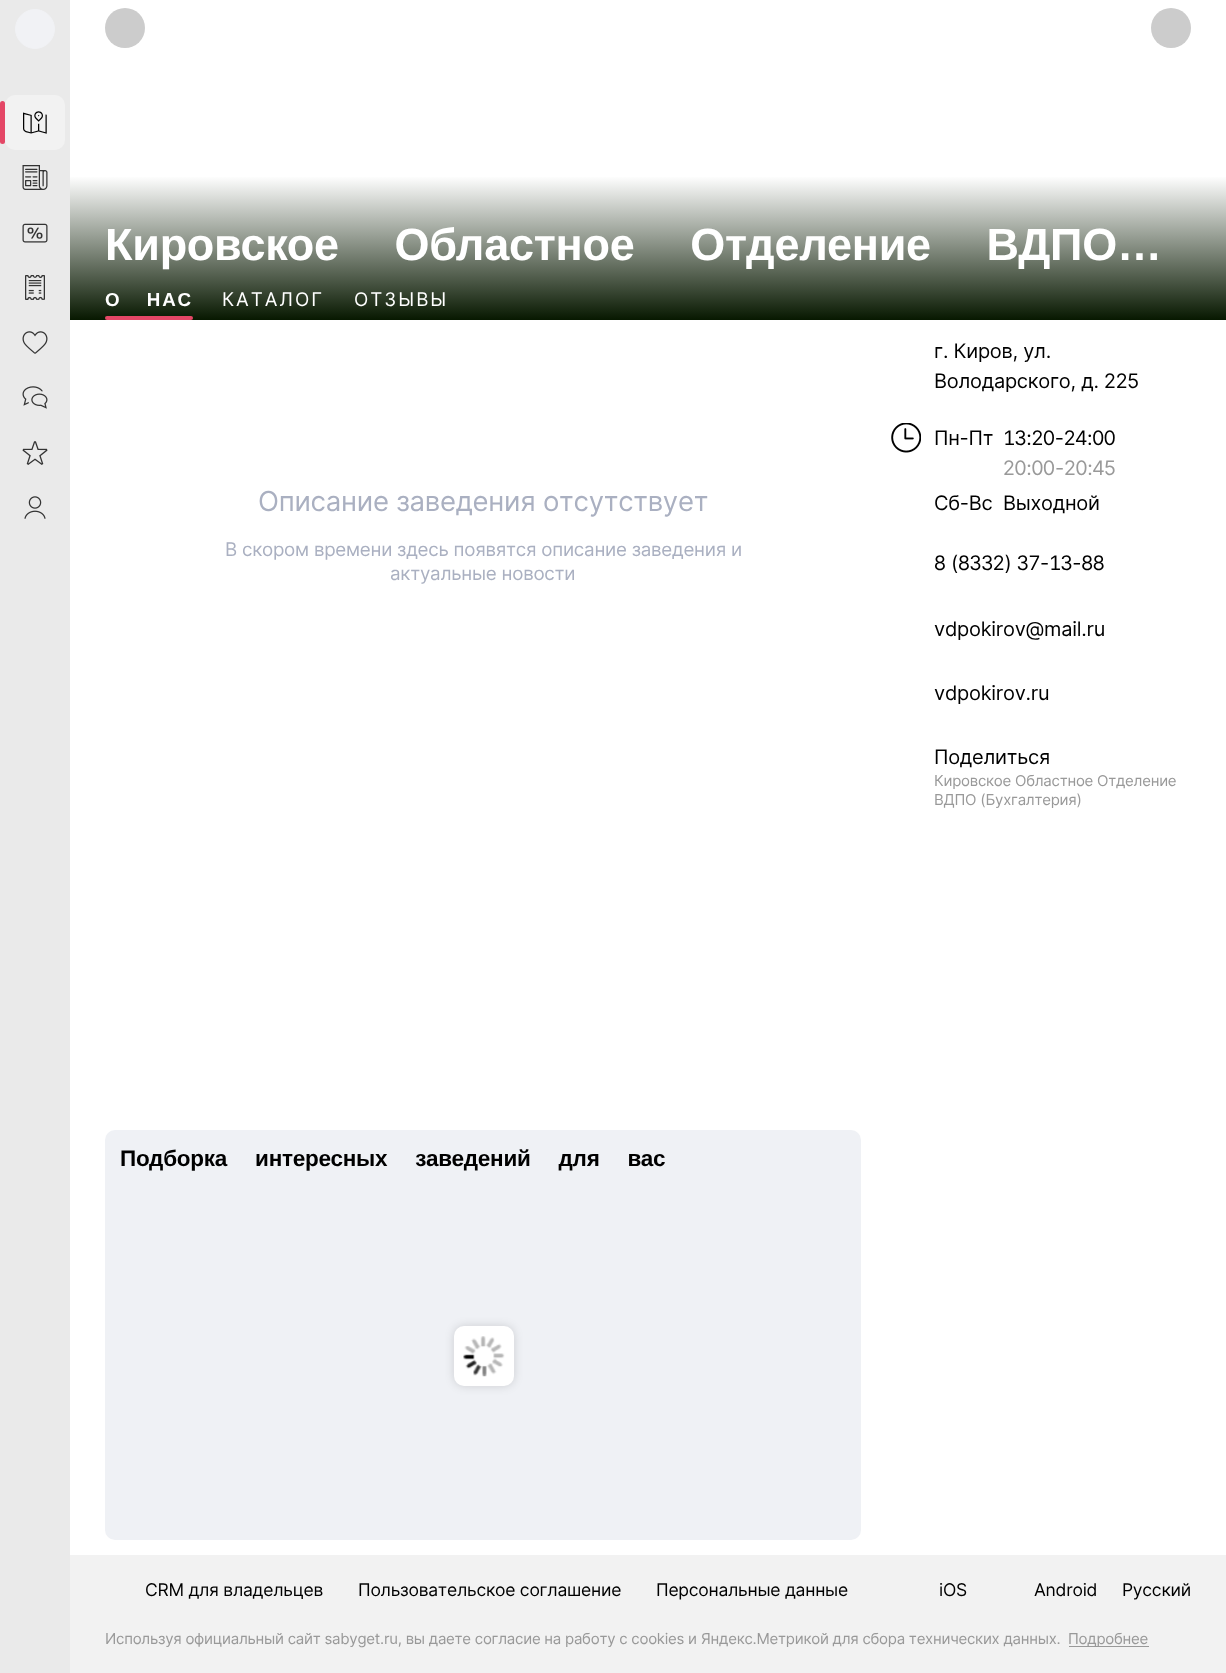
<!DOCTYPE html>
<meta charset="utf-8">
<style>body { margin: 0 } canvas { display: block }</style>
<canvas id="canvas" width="1226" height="1673"></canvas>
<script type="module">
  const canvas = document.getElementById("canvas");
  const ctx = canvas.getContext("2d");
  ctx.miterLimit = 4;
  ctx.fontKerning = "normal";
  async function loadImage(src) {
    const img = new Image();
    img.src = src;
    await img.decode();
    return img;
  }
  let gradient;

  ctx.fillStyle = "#ffffff";
  ctx.fillRect(0, 0, 1226, 1673);
  ctx.fillStyle = "#eaeaea";
  ctx.fillRect(0, 0, 70, 1673);
  ctx.fillStyle = "#f1f2f5";
  ctx.beginPath();
  ctx.arc(35, 29, 19.5, 0, Math.PI * 2);
  ctx.fill();
  ctx.strokeStyle = "#f1f2f5";
  ctx.stroke();
  ctx.fillStyle = "#e44766";
  ctx.beginPath();
  ctx.roundRect(0, 101, 5, 43, 2.5);
  ctx.fill();
  ctx.fillStyle = "#f2f2f2";
  ctx.beginPath();
  ctx.roundRect(5, 95, 60, 55, 10);
  ctx.fill();
  ctx.letterSpacing = "-0.25px";
  ctx.font = "25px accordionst";
  ctx.fillStyle = "#000000";
  ctx.fillText("Map", 23, 135);
  ctx.drawImage(await loadImage("img1.png"), 22, 165, 26, 25);
  ctx.drawImage(await loadImage("img2.png"), 22, 223, 26, 20);
  ctx.drawImage(await loadImage("img3.png"), 25, 275, 20, 25);
  ctx.drawImage(await loadImage("img4.png"), 22, 331, 26, 23);
  ctx.drawImage(await loadImage("img5.png"), 22, 386, 26, 23);
  ctx.drawImage(await loadImage("img6.png"), 22, 441, 26, 24);
  ctx.drawImage(await loadImage("img7.png"), 24, 496, 22, 23);
  ctx.fillStyle = "#cccccc";
  ctx.beginPath();
  ctx.arc(125, 28, 20, 0, Math.PI * 2);
  ctx.fill();
  ctx.beginPath();
  ctx.arc(1171, 28, 20, 0, Math.PI * 2);
  ctx.fill();
  gradient = ctx.createLinearGradient(648, 320, 648, 0);
  gradient.addColorStop(0, "#071800");
  gradient.addColorStop(0.45, "#ffffff");
  ctx.fillStyle = gradient;
  ctx.fillRect(70, 177, 1156, 143);
  ctx.wordSpacing = "43.5px";
  ctx.font = "bold 45px Liberation Sans";
  ctx.fillStyle = "#ffffff";
  ctx.fillText("Кировское Областное Отделение ВДПО…", 105, 260);
  ctx.letterSpacing = "2px";
  ctx.wordSpacing = "18px";
  ctx.font = "bold 18.75px Liberation Sans";
  ctx.fillText("О НАС", 105, 306);
  ctx.fillStyle = "#e44766";
  ctx.beginPath();
  ctx.roundRect(105, 316, 88, 4, 2);
  ctx.fill();
  ctx.wordSpacing = "0px";
  ctx.font = "18.75px Inter";
  ctx.fillStyle = "#ffffff";
  ctx.fillText("КАТАЛОГ", 222, 306);
  ctx.fillText("ОТЗЫВЫ", 354, 306);
  ctx.letterSpacing = "-0.25px";
  ctx.font = "27.5px Inter";
  ctx.fillStyle = "#aab0c1";
  ctx.fillText("Описание заведения отсутствует", 258, 511);
  ctx.font = "18.75px Inter";
  ctx.fillText("В скором времени здесь появятся описание заведения и", 225, 556);
  ctx.fillText("актуальные новости", 390, 580);
  ctx.fillStyle = "#eff1f5";
  ctx.beginPath();
  ctx.roundRect(105, 1130, 756, 410, 10);
  ctx.fill();
  ctx.wordSpacing = "22px";
  ctx.font = "bold 22.5px Liberation Sans";
  ctx.fillStyle = "#000000";
  ctx.fillText("Подборка интересных заведений для вас", 120, 1166);
  ctx.fillStyle = "rgba(0, 0, 0, 0.14)";
  ctx.filter = "blur(5px)";
  ctx.beginPath();
  ctx.roundRect(454, 1326, 60, 60, 10);
  ctx.fill();
  ctx.filter = "none";
  ctx.fillStyle = "#ffffff";
  ctx.beginPath();
  ctx.roundRect(454, 1326, 60, 60, 10);
  ctx.fill();
  ctx.drawImage(await loadImage("img8.png"), 463, 1336, 42, 41);
  ctx.wordSpacing = "0px";
  ctx.font = "20px Inter";
  ctx.fillStyle = "#000000";
  ctx.fillText("г. Киров, ул.", 934, 358);
  ctx.font = "20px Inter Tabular";
  ctx.fillText("Володарского, д. 225", 934, 388);
  ctx.drawImage(await loadImage("img9.png"), 891, 423, 30, 30);
  ctx.font = "20px Inter";
  ctx.fillText("Пн-Пт", 934, 445);
  ctx.font = "20px Inter Tabular";
  ctx.fillText("13:20-24:00", 1003, 445);
  ctx.fillStyle = "#999999";
  ctx.fillText("20:00", 1003, 475);
  ctx.font = "20px Inter";
  ctx.fillText("-", 1055, 475);
  ctx.font = "20px Inter Tabular";
  ctx.fillText("20:45", 1064, 475);
  ctx.font = "20px Inter";
  ctx.fillStyle = "#000000";
  ctx.fillText("Сб-Вс", 934, 510);
  ctx.fillText("Выходной", 1003, 510);
  ctx.font = "20px Inter Tabular";
  ctx.fillText("8 (8332) 37-13-88", 934, 570);
  ctx.font = "20px Inter";
  ctx.fillText("vdpokirov@mail.ru", 934, 636);
  ctx.fillText("vdpokirov.ru", 934, 700);
  ctx.fillText("Поделиться", 934, 764);
  ctx.font = "15px Inter";
  ctx.fillStyle = "#999999";
  ctx.fillText("Кировское Областное Отделение", 934, 786);
  ctx.fillText("ВДПО (Бухгалтерия)", 934, 805);
  ctx.fillStyle = "#f2f2f2";
  ctx.fillRect(70, 1555, 1156, 118);
  ctx.font = "17.5px Inter";
  ctx.fillStyle = "#000000";
  ctx.fillText("CRM для владельцев", 145, 1596);
  ctx.fillText("Пользовательское соглашение", 358, 1596);
  ctx.fillText("Персональные данные", 656, 1596);
  ctx.fillText("iOS", 939, 1596);
  ctx.fillText("Android", 1034, 1596);
  ctx.fillText("Русский", 1122, 1596);
  ctx.font = "15px Inter";
  ctx.fillStyle = "#999999";
  ctx.fillText("Используя официальный сайт sabyget.ru, вы даете согласие на работу с cookies и Яндекс.Метрикой для сбора технических данных.", 105, 1644);
  ctx.fillRect(1069, 1646, 80, 1);
  ctx.fillText("Подробнее", 1068, 1644);
</script>
